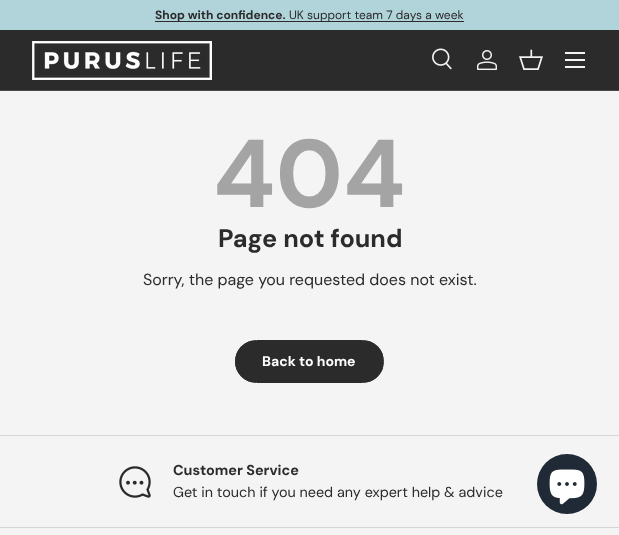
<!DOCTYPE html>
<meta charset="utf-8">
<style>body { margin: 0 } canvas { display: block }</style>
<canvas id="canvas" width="619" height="535"></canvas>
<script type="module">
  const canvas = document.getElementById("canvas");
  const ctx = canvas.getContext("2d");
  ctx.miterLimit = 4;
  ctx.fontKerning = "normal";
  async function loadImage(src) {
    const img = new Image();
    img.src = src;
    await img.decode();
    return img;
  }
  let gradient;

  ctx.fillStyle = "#f4f4f4";
  ctx.fillRect(0, 0, 619, 535);
  ctx.fillStyle = "#b1d4db";
  ctx.fillRect(0, 0, 619, 30);
  ctx.fillStyle = "#2a2b2a";
  ctx.fillRect(155, 21, 309, 1);
  ctx.font = "bold 12px DM Sans";
  ctx.fillText("Shop with confidence.", 155, 19);
  ctx.font = "12px DM Sans";
  ctx.fillText("UK support team 7 days a week", 289, 19);
  ctx.fillRect(0, 30, 619, 60);
  ctx.fillStyle = "#484948";
  ctx.fillRect(0, 90, 619, 1);
  ctx.drawImage(await loadImage("img1.png"), 32, 41, 180, 39);
  ctx.drawImage(await loadImage("img2.png"), 432, 48, 20, 22);
  ctx.drawImage(await loadImage("img3.png"), 477, 50, 20, 20);
  ctx.drawImage(await loadImage("img4.png"), 519, 49, 24, 21);
  ctx.fillStyle = "#f4f4f4";
  ctx.fillRect(565, 52, 20, 2);
  ctx.fillRect(565, 66, 20, 2);
  ctx.fillRect(565, 59, 20, 2);
  ctx.font = "bold 96px DM Sans";
  ctx.fillStyle = "#a3a4a3";
  ctx.fillText("404", 213, 207);
  ctx.font = "bold 25.25px DM Sans";
  ctx.fillStyle = "#2a2b2a";
  ctx.fillText("Page not found", 218, 247);
  ctx.font = "16px DM Sans";
  ctx.fillText("Sorry, the page you requested does not exist.", 143, 285);
  ctx.save();
  ctx.beginPath();
  ctx.roundRect(235, 340, 149, 43, 21.5);
  ctx.clip();
  gradient = ctx.createLinearGradient(-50, 309, 375, 414);
  gradient.addColorStop(0.6, "#525352");
  gradient.addColorStop(0.6, "#2a2b2a");
  gradient.addColorStop(1, "#2a2b2a");
  ctx.fillStyle = gradient;
  ctx.fillRect(235, 341, 148, 41);
  ctx.restore();
  ctx.beginPath();
  ctx.roundRect(235.5, 340.5, 148, 42, 21);
  ctx.strokeStyle = "#2a2b2a";
  ctx.stroke();
  ctx.font = "bold 14px DM Sans";
  ctx.fillStyle = "#ffffff";
  ctx.fillText("Back to home", 262, 366);
  ctx.fillStyle = "#d6d6d6";
  ctx.fillRect(0, 435, 619, 1);
  ctx.drawImage(await loadImage("img5.png"), 119, 466, 32, 32);
  ctx.font = "bold 14.4px DM Sans";
  ctx.fillStyle = "#2a2b2a";
  ctx.fillText("Customer Service", 173, 475);
  ctx.font = "14.4px DM Sans";
  ctx.fillText("Get in touch if you need any expert help & advice", 173, 497);
  ctx.fillStyle = "#202a36";
  ctx.beginPath();
  ctx.arc(567, 484, 30, 0, Math.PI * 2);
  ctx.fill();
  ctx.drawImage(await loadImage("img6.png"), 549, 469, 36, 36);
  ctx.fillStyle = "#d6d6d6";
  ctx.fillRect(0, 527, 619, 1);
</script>
